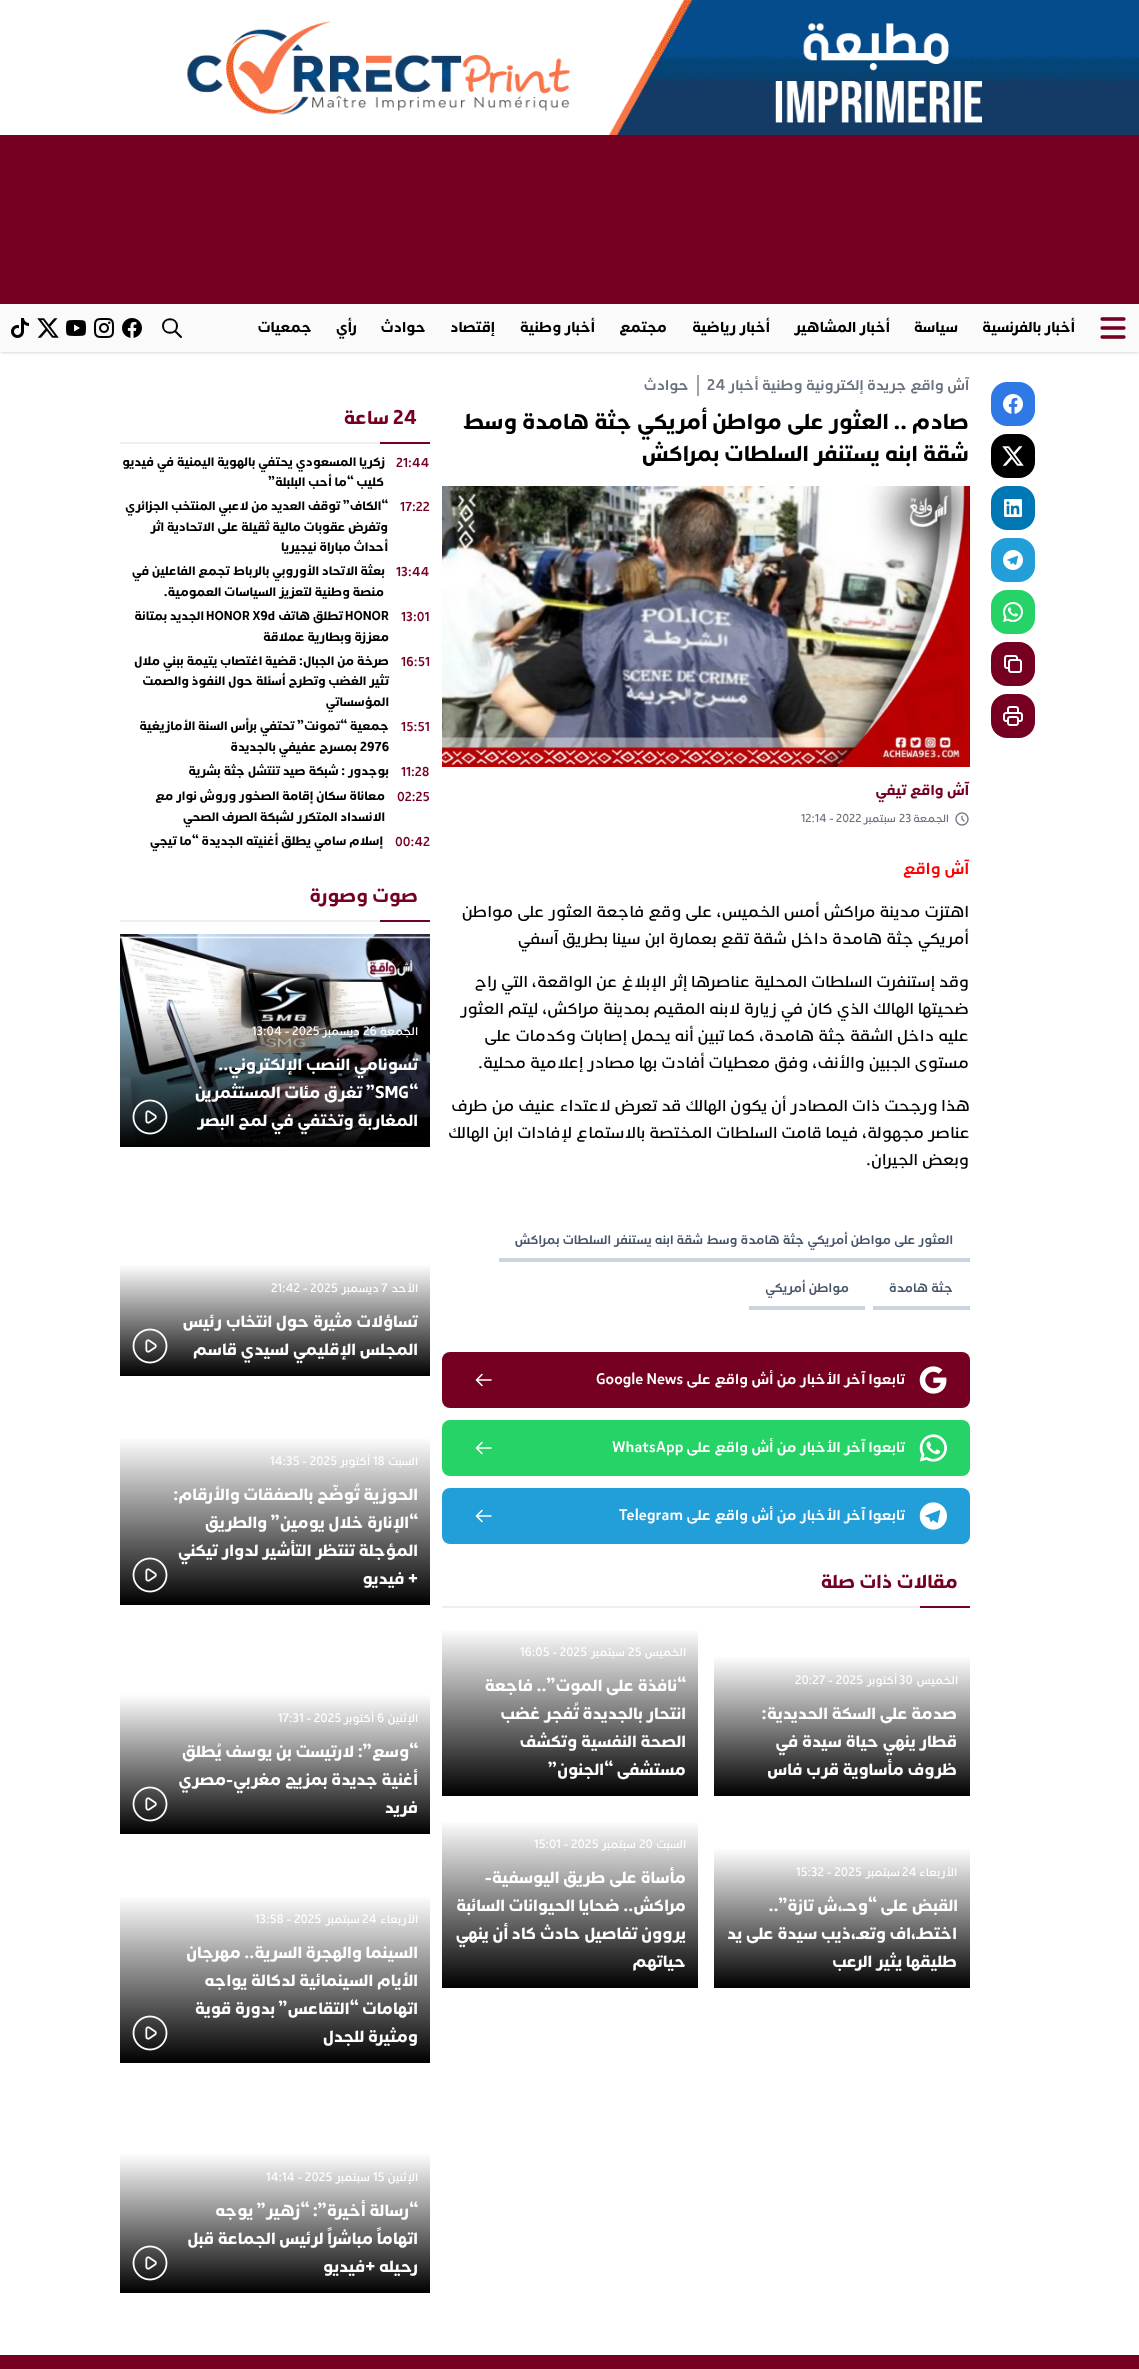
<!DOCTYPE html>
<meta charset="utf-8">
<style>body { margin: 0 } canvas { display: block }</style>
<canvas id="canvas" width="1139" height="2369"></canvas>
<script type="module">
  const canvas = document.getElementById("canvas");
  const ctx = canvas.getContext("2d");
  ctx.miterLimit = 4;
  ctx.fontKerning = "normal";
  async function loadImage(src) {
    const img = new Image();
    img.src = src;
    await img.decode();
    return img;
  }
  let gradient;

  ctx.fillStyle = "#ffffff";
  ctx.fillRect(0, 0, 1139, 2369);
  ctx.drawImage(await loadImage("img1.png"), 187, 0, 952, 135);
  ctx.fillStyle = "#750021";
  ctx.fillRect(0, 135, 1139, 169);
  ctx.fillStyle = "rgba(0, 0, 0, 0.1)";
  ctx.filter = "blur(1px)";
  ctx.beginPath();
  ctx.rect(1, 306, 1137, 46);
  ctx.fill();
  ctx.filter = "none";
  ctx.filter = "blur(1.5px)";
  ctx.beginPath();
  ctx.rect(0, 305, 1139, 48);
  ctx.fill();
  ctx.filter = "none";
  ctx.fillStyle = "#fafafa";
  ctx.fillRect(0, 304, 1139, 48);
  ctx.drawImage(await loadImage("img2.png"), 1100, 317, 26, 22);
  ctx.direction = "rtl";
  ctx.font = "bold 16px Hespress";
  ctx.fillStyle = "#000000";
  ctx.fillText("أخبار بالفرنسية", 1075, 332);
  ctx.fillText("سياسة", 958, 332);
  ctx.fillText("أخبار المشاهير", 890, 332);
  ctx.fillText("أخبار رياضية", 770, 332);
  ctx.fillText("مجتمع", 667, 332);
  ctx.fillText("أخبار وطنية", 595, 332);
  ctx.fillText("إقتصاد", 495, 332);
  ctx.fillText("حوادث", 426, 332);
  ctx.fillText("رأي", 357, 332);
  ctx.fillText("جمعيات", 312, 332);
  ctx.beginPath();
  ctx.moveTo(181, 337);
  ctx.lineTo(175, 331);
  ctx.moveTo(177, 326);
  ctx.bezierCurveTo(177, 335, 163, 335, 163, 326);
  ctx.bezierCurveTo(163, 317, 177, 317, 177, 326);
  ctx.closePath();
  ctx.strokeStyle = "#000000";
  ctx.lineWidth = 2;
  ctx.lineCap = "round";
  ctx.lineJoin = "round";
  ctx.stroke();
  ctx.drawImage(await loadImage("img3.png"), 122, 318, 20, 20);
  ctx.drawImage(await loadImage("img4.png"), 94, 318, 20, 20);
  ctx.drawImage(await loadImage("img5.png"), 66, 320, 20, 16);
  ctx.drawImage(await loadImage("img6.png"), 37, 318, 22, 20);
  ctx.drawImage(await loadImage("img7.png"), 11, 318, 18, 20);
  ctx.fillStyle = "#2f79e7";
  ctx.beginPath();
  ctx.roundRect(991, 382, 44, 44, 16);
  ctx.fill();
  ctx.drawImage(await loadImage("img8.png"), 1003, 394, 20, 20);
  ctx.fillStyle = "#000000";
  ctx.beginPath();
  ctx.roundRect(991, 434, 44, 44, 16);
  ctx.fill();
  ctx.drawImage(await loadImage("img9.png"), 1002, 446, 22, 20);
  ctx.fillStyle = "#0077b5";
  ctx.beginPath();
  ctx.roundRect(991, 486, 44, 44, 16);
  ctx.fill();
  ctx.drawImage(await loadImage("img10.png"), 1004, 499, 18, 18);
  ctx.fillStyle = "#229ed9";
  ctx.beginPath();
  ctx.roundRect(991, 538, 44, 44, 16);
  ctx.fill();
  ctx.drawImage(await loadImage("img11.png"), 1003, 550, 20, 20);
  ctx.fillStyle = "#25d366";
  ctx.beginPath();
  ctx.roundRect(991, 590, 44, 44, 16);
  ctx.fill();
  ctx.drawImage(await loadImage("img12.png"), 1003, 602, 20, 20);
  ctx.fillStyle = "#750021";
  ctx.beginPath();
  ctx.roundRect(991, 642, 44, 44, 16);
  ctx.fill();
  ctx.drawImage(await loadImage("img13.png"), 1004, 655, 18, 18);
  ctx.beginPath();
  ctx.roundRect(991, 694, 44, 44, 16);
  ctx.fill();
  ctx.drawImage(await loadImage("img14.png"), 1003, 706, 20, 20);
  ctx.font = "600 16px Hespress";
  ctx.fillStyle = "#6b7280";
  ctx.fillText("آش واقع جريدة إلكترونية وطنية أخبار", 969, 390);
  ctx.direction = "ltr";
  ctx.fillText("24", 707, 390);
  ctx.fillStyle = "#9ca3af";
  ctx.fillRect(697, 375, 2, 21);
  ctx.direction = "rtl";
  ctx.fillStyle = "#6b7280";
  ctx.fillText("حوادث", 689, 390);
  ctx.font = "bold 24px Hespress";
  ctx.fillStyle = "#000000";
  ctx.fillText("صادم .. العثور على مواطن أمريكي جثة هامدة وسط", 969, 429);
  ctx.fillText("شقة ابنه يستنفر السلطات بمراكش", 969, 461);
  ctx.drawImage(await loadImage("img15.png"), 442, 486, 528, 281);
  ctx.font = "bold 16px Hespress";
  ctx.fillStyle = "#750021";
  ctx.fillText("آش واقع تيفي", 969, 795);
  ctx.drawImage(await loadImage("img16.png"), 955, 812, 14, 14);
  ctx.font = "500 12px Hespress";
  ctx.fillStyle = "#6b7280";
  ctx.fillText("الجمعة", 949, 822);
  ctx.direction = "ltr";
  ctx.fillText("23", 899, 822);
  ctx.direction = "rtl";
  ctx.fillText("سبتمبر", 896, 822);
  ctx.direction = "ltr";
  ctx.fillText("12:14 - 2022", 801, 822);
  ctx.direction = "rtl";
  ctx.font = "600 18px Hespress";
  ctx.fillStyle = "#ff0000";
  ctx.fillText("آش واقع", 969, 874);
  ctx.font = "500 18px Hespress";
  ctx.fillStyle = "#000000";
  ctx.fillText("اهتزت مدينة مراكش أمس الخميس، على وقع فاجعة العثور على مواطن", 969, 917);
  ctx.fillText("أمريكي جثة هامدة داخل شقة تقع بعمارة ابن سينا بطريق آسفي", 969, 944);
  ctx.fillText("وقد إستنفرت السلطات المحلية عناصرها إثر الإبلاغ عن الواقعة، التي راح", 969, 987);
  ctx.fillText("ضحيتها الهالك الذي كان في زيارة لابنه المقيم بمدينة مراكش، ليتم العثور", 969, 1014);
  ctx.fillText("عليه داخل الشقة جثة هامدة، كما تبين أنه يحمل إصابات وكدمات على", 969, 1041);
  ctx.fillText("مستوى الجبين والأنف، وفق معطيات أفادت بها مصادر إعلامية محلية.", 969, 1068);
  ctx.fillText("هذا ورجحت ذات المصادر أن يكون الهالك قد تعرض لاعتداء عنيف من طرف", 970, 1111);
  ctx.fillText("عناصر مجهولة، فيما قامت السلطات المختصة بالاستماع لإفادات ابن الهالك", 970, 1138);
  ctx.fillText("وبعض الجيران.", 969, 1165);
  ctx.fillStyle = "#cbd5e1";
  ctx.fillRect(499, 1258, 471, 4);
  ctx.font = "600 14px Hespress";
  ctx.fillStyle = "#475569";
  ctx.fillText("العثور على مواطن أمريكي جثة هامدة وسط شقة ابنه يستنفر السلطات بمراكش", 953, 1244);
  ctx.fillStyle = "#cbd5e1";
  ctx.fillRect(873, 1306, 97, 4);
  ctx.fillStyle = "#475569";
  ctx.fillText("جثة هامدة", 953, 1292);
  ctx.fillStyle = "#cbd5e1";
  ctx.fillRect(749, 1306, 116, 4);
  ctx.fillStyle = "#475569";
  ctx.fillText("مواطن أمريكي", 849, 1292);
  ctx.fillStyle = "#750021";
  ctx.beginPath();
  ctx.roundRect(442, 1352, 528, 56, 8);
  ctx.fill();
  ctx.drawImage(await loadImage("img17.png"), 919, 1366, 28, 28);
  ctx.font = "600 16px Hespress";
  ctx.fillStyle = "#ffffff";
  ctx.fillText("تابعوا آخر الأخبار من أش واقع على", 905, 1384);
  ctx.direction = "ltr";
  ctx.fillText("Google News", 596, 1384);
  ctx.beginPath();
  ctx.moveTo(482, 1385.5);
  ctx.lineTo(476.5, 1380);
  ctx.moveTo(476.5, 1380);
  ctx.lineTo(482, 1374.5);
  ctx.moveTo(476.5, 1380);
  ctx.lineTo(491, 1380);
  ctx.strokeStyle = "#ffffff";
  ctx.lineWidth = 1.6;
  ctx.stroke();
  ctx.fillStyle = "#25d366";
  ctx.beginPath();
  ctx.roundRect(442, 1420, 528, 56, 8);
  ctx.fill();
  ctx.drawImage(await loadImage("img18.png"), 919, 1434, 28, 28);
  ctx.direction = "rtl";
  ctx.fillStyle = "#ffffff";
  ctx.fillText("تابعوا آخر الأخبار من أش واقع على", 905, 1452);
  ctx.direction = "ltr";
  ctx.fillText("WhatsApp", 612, 1452);
  ctx.beginPath();
  ctx.moveTo(482, 1453.5);
  ctx.lineTo(476.5, 1448);
  ctx.moveTo(476.5, 1448);
  ctx.lineTo(482, 1442.5);
  ctx.moveTo(476.5, 1448);
  ctx.lineTo(491, 1448);
  ctx.stroke();
  ctx.fillStyle = "#229ed9";
  ctx.beginPath();
  ctx.roundRect(442, 1488, 528, 56, 8);
  ctx.fill();
  ctx.drawImage(await loadImage("img19.png"), 919, 1502, 28, 28);
  ctx.direction = "rtl";
  ctx.fillStyle = "#ffffff";
  ctx.fillText("تابعوا آخر الأخبار من أش واقع على", 905, 1520);
  ctx.direction = "ltr";
  ctx.fillText("Telegram", 619, 1520);
  ctx.beginPath();
  ctx.moveTo(482, 1521.5);
  ctx.lineTo(476.5, 1516);
  ctx.moveTo(476.5, 1516);
  ctx.lineTo(482, 1510.5);
  ctx.moveTo(476.5, 1516);
  ctx.lineTo(491, 1516);
  ctx.stroke();
  ctx.direction = "rtl";
  ctx.font = "bold 20.75px Hespress";
  ctx.fillStyle = "#750021";
  ctx.fillText("مقالات ذات صلة", 958, 1588);
  ctx.fillRect(920, 1606, 50, 2);
  ctx.fillStyle = "#eeeeee";
  ctx.fillRect(442, 1606, 478, 2);
  gradient = ctx.createLinearGradient(842, 1796, 842, 1656);
  gradient.addColorStop(0, "#000000");
  gradient.addColorStop(1, "#ffffff");
  ctx.fillStyle = gradient;
  ctx.fillRect(714, 1657, 256, 139);
  ctx.font = "500 12.75px Hespress";
  ctx.fillStyle = "#ffffff";
  ctx.fillText("الخميس", 958, 1684);
  ctx.direction = "ltr";
  ctx.fillText("30", 899, 1684);
  ctx.direction = "rtl";
  ctx.fillText("أكتوبر", 897, 1684);
  ctx.direction = "ltr";
  ctx.fillText("20:27 - 2025", 795, 1684);
  ctx.direction = "rtl";
  ctx.font = "bold 18px Hespress";
  ctx.fillText("صدمة على السكة الحديدية:", 957, 1719);
  ctx.fillText("قطار ينهي حياة سيدة في", 957, 1747);
  ctx.fillText("ظروف مأساوية قرب فاس", 957, 1775);
  gradient = ctx.createLinearGradient(570, 1796, 570, 1628);
  gradient.addColorStop(0, "#000000");
  gradient.addColorStop(1, "#ffffff");
  ctx.fillStyle = gradient;
  ctx.fillRect(442, 1630, 256, 166);
  ctx.font = "500 12.75px Hespress";
  ctx.fillStyle = "#ffffff";
  ctx.fillText("الخميس", 686, 1656);
  ctx.direction = "ltr";
  ctx.fillText("25", 628, 1656);
  ctx.direction = "rtl";
  ctx.fillText("سبتمبر", 625, 1656);
  ctx.direction = "ltr";
  ctx.fillText("16:05 - 2025", 520, 1656);
  ctx.direction = "rtl";
  ctx.font = "bold 18px Hespress";
  ctx.fillText("“نافذة على الموت”.. فاجعة", 686, 1691);
  ctx.fillText("انتحار بالجديدة تُفجر غضب", 686, 1719);
  ctx.fillText("الصحة النفسية وتكشف", 686, 1747);
  ctx.fillText("مستشفى “الجنون”", 686, 1775);
  gradient = ctx.createLinearGradient(842, 1988, 842, 1848);
  gradient.addColorStop(0, "#000000");
  gradient.addColorStop(1, "#ffffff");
  ctx.fillStyle = gradient;
  ctx.fillRect(714, 1849, 256, 139);
  ctx.font = "500 12.75px Hespress";
  ctx.fillStyle = "#ffffff";
  ctx.fillText("الأربعاء", 957, 1876);
  ctx.direction = "ltr";
  ctx.fillText("24", 902, 1876);
  ctx.direction = "rtl";
  ctx.fillText("سبتمبر", 900, 1876);
  ctx.direction = "ltr";
  ctx.fillText("15:32 - 2025", 796, 1876);
  ctx.direction = "rtl";
  ctx.font = "bold 18px Hespress";
  ctx.fillText("القبض على “وحـ،ش تازة”..", 958, 1911);
  ctx.fillText("اختطـ،اف وتعـ،ذيب سيدة على يد", 957, 1939);
  ctx.fillText("طليقها يثير الرعب", 957, 1967);
  gradient = ctx.createLinearGradient(570, 1988, 570, 1820);
  gradient.addColorStop(0, "#000000");
  gradient.addColorStop(1, "#ffffff");
  ctx.fillStyle = gradient;
  ctx.fillRect(442, 1822, 256, 166);
  ctx.font = "500 12.75px Hespress";
  ctx.fillStyle = "#ffffff";
  ctx.fillText("السبت", 686, 1848);
  ctx.direction = "ltr";
  ctx.fillText("20", 639, 1848);
  ctx.direction = "rtl";
  ctx.fillText("سبتمبر", 636, 1848);
  ctx.direction = "ltr";
  ctx.fillText("15:01 - 2025", 534, 1848);
  ctx.direction = "rtl";
  ctx.font = "bold 18px Hespress";
  ctx.fillText("مأساة على طريق اليوسفية-", 686, 1883);
  ctx.fillText("مراكش.. ضحايا الحيوانات السائبة", 686, 1911);
  ctx.fillText("يروون تفاصيل حادث كاد أن ينهي", 686, 1939);
  ctx.fillText("حياتهم", 686, 1967);
  ctx.direction = "ltr";
  ctx.font = "bold 20.75px Hespress";
  ctx.fillStyle = "#750021";
  ctx.fillText("24", 393, 424);
  ctx.direction = "rtl";
  ctx.fillText("ساعة", 389, 424);
  ctx.fillRect(380, 442, 50, 2);
  ctx.fillStyle = "#eeeeee";
  ctx.fillRect(120, 442, 260, 2);
  ctx.direction = "ltr";
  ctx.font = "600 13.6px Hespress";
  ctx.fillStyle = "#750021";
  ctx.fillText("21:44", 396, 467);
  ctx.direction = "rtl";
  ctx.font = "bold 13.6px Hespress";
  ctx.fillStyle = "#000000";
  ctx.fillText("زكريا المسعودي يحتفي بالهوية اليمنية في فيديو", 385, 466);
  ctx.fillText("كليب “ما أحب البلبلة”", 384, 486);
  ctx.direction = "ltr";
  ctx.font = "600 13.6px Hespress";
  ctx.fillStyle = "#750021";
  ctx.fillText("17:22", 400, 511);
  ctx.direction = "rtl";
  ctx.font = "bold 13.6px Hespress";
  ctx.fillStyle = "#000000";
  ctx.fillText("“الكاف” توقف العديد من لاعبي المنتخب الجزائري", 388, 510);
  ctx.fillText("وتفرض عقوبات مالية ثقيلة على الاتحادية اثر", 388, 531);
  ctx.fillText("أحداث مباراة نيجيريا", 388, 551);
  ctx.direction = "ltr";
  ctx.font = "600 13.6px Hespress";
  ctx.fillStyle = "#750021";
  ctx.fillText("13:44", 396, 576);
  ctx.direction = "rtl";
  ctx.font = "bold 13.6px Hespress";
  ctx.fillStyle = "#000000";
  ctx.fillText("بعثة الاتحاد الأوروبي بالرباط تجمع الفاعلين في", 385, 575);
  ctx.fillText("منصة وطنية لتعزيز السياسات العمومية.", 384, 596);
  ctx.direction = "ltr";
  ctx.font = "600 13.6px Hespress";
  ctx.fillStyle = "#750021";
  ctx.fillText("13:01", 401, 621);
  ctx.font = "bold 13.6px Hespress";
  ctx.fillStyle = "#000000";
  ctx.fillText("HONOR", 345, 620);
  ctx.direction = "rtl";
  ctx.fillText("تطلق هاتف", 343, 620);
  ctx.direction = "ltr";
  ctx.fillText("HONOR X9d", 206, 620);
  ctx.direction = "rtl";
  ctx.fillText("الجديد بمتانة", 204, 620);
  ctx.fillText("معززة وبطارية عملاقة", 389, 641);
  ctx.direction = "ltr";
  ctx.font = "600 13.6px Hespress";
  ctx.fillStyle = "#750021";
  ctx.fillText("16:51", 401, 666);
  ctx.direction = "rtl";
  ctx.font = "bold 13.6px Hespress";
  ctx.fillStyle = "#000000";
  ctx.fillText("صرخة من الجبال: قضية اغتصاب يتيمة ببني ملال", 389, 665);
  ctx.fillText("تثير الغضب وتطرح أسئلة حول النفوذ والصمت", 389, 685);
  ctx.fillText("المؤسساتي", 389, 706);
  ctx.direction = "ltr";
  ctx.font = "600 13.6px Hespress";
  ctx.fillStyle = "#750021";
  ctx.fillText("15:51", 401, 731);
  ctx.direction = "rtl";
  ctx.font = "bold 13.6px Hespress";
  ctx.fillStyle = "#000000";
  ctx.fillText("جمعية “تمونت” تحتفي برأس السنة الأمازيغية", 389, 730);
  ctx.direction = "ltr";
  ctx.fillText("2976", 360, 751);
  ctx.direction = "rtl";
  ctx.fillText("بمسرح عفيفي بالجديدة", 357, 751);
  ctx.direction = "ltr";
  ctx.font = "600 13.6px Hespress";
  ctx.fillStyle = "#750021";
  ctx.fillText("11:28", 401, 776);
  ctx.direction = "rtl";
  ctx.font = "bold 13.6px Hespress";
  ctx.fillStyle = "#000000";
  ctx.fillText("بوجدور : شبكة صيد تنتشل جثة بشرية", 389, 775);
  ctx.direction = "ltr";
  ctx.font = "600 13.6px Hespress";
  ctx.fillStyle = "#750021";
  ctx.fillText("02:25", 397, 801);
  ctx.direction = "rtl";
  ctx.font = "bold 13.6px Hespress";
  ctx.fillStyle = "#000000";
  ctx.fillText("معاناة سكان إقامة الصخور وروش نوار مع", 385, 800);
  ctx.fillText("الانسداد المتكرر لشبكة الصرف الصحي", 385, 821);
  ctx.direction = "ltr";
  ctx.font = "600 13.6px Hespress";
  ctx.fillStyle = "#750021";
  ctx.fillText("00:42", 395, 846);
  ctx.direction = "rtl";
  ctx.font = "bold 13.6px Hespress";
  ctx.fillStyle = "#000000";
  ctx.fillText("إسلام سامي يطلق أغنيته الجديدة “ما تيجي", 383, 845);
  ctx.font = "bold 20.75px Hespress";
  ctx.fillStyle = "#750021";
  ctx.fillText("صوت وصورة", 418, 902);
  ctx.fillRect(380, 920, 50, 2);
  ctx.fillStyle = "#eeeeee";
  ctx.fillRect(120, 920, 260, 2);
  ctx.drawImage(await loadImage("img20.png"), 120, 934, 310, 213);
  ctx.drawImage(await loadImage("img21.png"), 132, 1099, 36, 36);
  ctx.font = "500 12.75px Hespress";
  ctx.fillStyle = "#ffffff";
  ctx.fillText("الجمعة", 418, 1035);
  ctx.direction = "ltr";
  ctx.fillText("26", 363, 1035);
  ctx.direction = "rtl";
  ctx.fillText("ديسمبر", 360, 1035);
  ctx.direction = "ltr";
  ctx.fillText("13:04 - 2025", 252, 1035);
  ctx.direction = "rtl";
  ctx.font = "bold 18px Hespress";
  ctx.fillText("تسونامي النصب الإلكتروني..", 418, 1070);
  ctx.direction = "ltr";
  ctx.fillText("SMG“", 375, 1098);
  ctx.direction = "rtl";
  ctx.fillText("” تغرق مئات المستثمرين", 375, 1098);
  ctx.fillText("المغاربة وتختفي في لمح البصر", 418, 1126);
  gradient = ctx.createLinearGradient(275, 1376, 275, 1264);
  gradient.addColorStop(0, "#000000");
  gradient.addColorStop(1, "#ffffff");
  ctx.fillStyle = gradient;
  ctx.fillRect(120, 1265, 310, 111);
  ctx.font = "500 12.75px Hespress";
  ctx.fillStyle = "#ffffff";
  ctx.fillText("الأحد", 418, 1292);
  ctx.direction = "ltr";
  ctx.fillText("7", 381, 1292);
  ctx.direction = "rtl";
  ctx.fillText("ديسمبر", 379, 1292);
  ctx.direction = "ltr";
  ctx.fillText("21:42 - 2025", 271, 1292);
  ctx.direction = "rtl";
  ctx.font = "bold 18px Hespress";
  ctx.fillText("تساؤلات مثيرة حول انتخاب رئيس", 418, 1327);
  ctx.fillText("المجلس الإقليمي لسيدي قاسم", 418, 1355);
  ctx.drawImage(await loadImage("img22.png"), 132, 1328, 36, 36);
  gradient = ctx.createLinearGradient(275, 1605, 275, 1437);
  gradient.addColorStop(0, "#000000");
  gradient.addColorStop(1, "#ffffff");
  ctx.fillStyle = gradient;
  ctx.fillRect(120, 1439, 310, 166);
  ctx.font = "500 12.75px Hespress";
  ctx.fillStyle = "#ffffff";
  ctx.fillText("السبت", 418, 1465);
  ctx.direction = "ltr";
  ctx.fillText("18", 373, 1465);
  ctx.direction = "rtl";
  ctx.fillText("أكتوبر", 370, 1465);
  ctx.direction = "ltr";
  ctx.fillText("14:35 - 2025", 270, 1465);
  ctx.direction = "rtl";
  ctx.font = "bold 18px Hespress";
  ctx.fillText("الحوزية تُوضّح بالصفقات والأرقام:", 418, 1500);
  ctx.fillText("“الإنارة خلال يومين” والطريق", 418, 1528);
  ctx.fillText("المؤجلة تنتظر التأشير لدوار تيكني", 418, 1556);
  ctx.fillText("+ فيديو", 418, 1584);
  ctx.drawImage(await loadImage("img23.png"), 132, 1557, 36, 36);
  gradient = ctx.createLinearGradient(275, 1834, 275, 1694);
  gradient.addColorStop(0, "#000000");
  gradient.addColorStop(1, "#ffffff");
  ctx.fillStyle = gradient;
  ctx.fillRect(120, 1695, 310, 139);
  ctx.font = "500 12.75px Hespress";
  ctx.fillStyle = "#ffffff";
  ctx.fillText("الإثنين", 418, 1722);
  ctx.direction = "ltr";
  ctx.fillText("6", 377, 1722);
  ctx.direction = "rtl";
  ctx.fillText("أكتوبر", 374, 1722);
  ctx.direction = "ltr";
  ctx.fillText("17:31 - 2025", 278, 1722);
  ctx.direction = "rtl";
  ctx.font = "bold 18px Hespress";
  ctx.fillText("“وسع”: لارتيست بن يوسف يُطلق", 418, 1757);
  ctx.fillText("أغنية جديدة بمزيج مغربي-مصري", 418, 1785);
  ctx.fillText("فريد", 418, 1813);
  ctx.drawImage(await loadImage("img24.png"), 132, 1786, 36, 36);
  gradient = ctx.createLinearGradient(275, 2063, 275, 1895);
  gradient.addColorStop(0, "#000000");
  gradient.addColorStop(1, "#ffffff");
  ctx.fillStyle = gradient;
  ctx.fillRect(120, 1897, 310, 166);
  ctx.font = "500 12.75px Hespress";
  ctx.fillStyle = "#ffffff";
  ctx.fillText("الأربعاء", 418, 1923);
  ctx.direction = "ltr";
  ctx.fillText("24", 362, 1923);
  ctx.direction = "rtl";
  ctx.fillText("سبتمبر", 360, 1923);
  ctx.direction = "ltr";
  ctx.fillText("13:58 - 2025", 255, 1923);
  ctx.direction = "rtl";
  ctx.font = "bold 18px Hespress";
  ctx.fillText("السينما والهجرة السرية.. مهرجان", 418, 1958);
  ctx.fillText("الأيام السينمائية لدكالة يواجه", 418, 1986);
  ctx.fillText("اتهامات “التقاعس” بدورة قوية", 418, 2014);
  ctx.fillText("ومثيرة للجدل", 418, 2042);
  ctx.drawImage(await loadImage("img23.png"), 132, 2015, 36, 36);
  gradient = ctx.createLinearGradient(275, 2293, 275, 2153);
  gradient.addColorStop(0, "#000000");
  gradient.addColorStop(1, "#ffffff");
  ctx.fillStyle = gradient;
  ctx.fillRect(120, 2154, 310, 139);
  ctx.font = "500 12.75px Hespress";
  ctx.fillStyle = "#ffffff";
  ctx.fillText("الإثنين", 418, 2181);
  ctx.direction = "ltr";
  ctx.fillText("15", 373, 2181);
  ctx.direction = "rtl";
  ctx.fillText("سبتمبر", 370, 2181);
  ctx.direction = "ltr";
  ctx.fillText("14:14 - 2025", 266, 2181);
  ctx.direction = "rtl";
  ctx.font = "bold 18px Hespress";
  ctx.fillText("“رسالة أخيرة”: “زهير” يوجه", 418, 2216);
  ctx.fillText("اتهاماً مباشراً لرئيس الجماعة قبل", 418, 2244);
  ctx.fillText("رحيله +فيديو", 418, 2272);
  ctx.drawImage(await loadImage("img24.png"), 132, 2245, 36, 36);
  ctx.fillStyle = "#750021";
  ctx.fillRect(0, 2355, 1139, 14);
</script>
